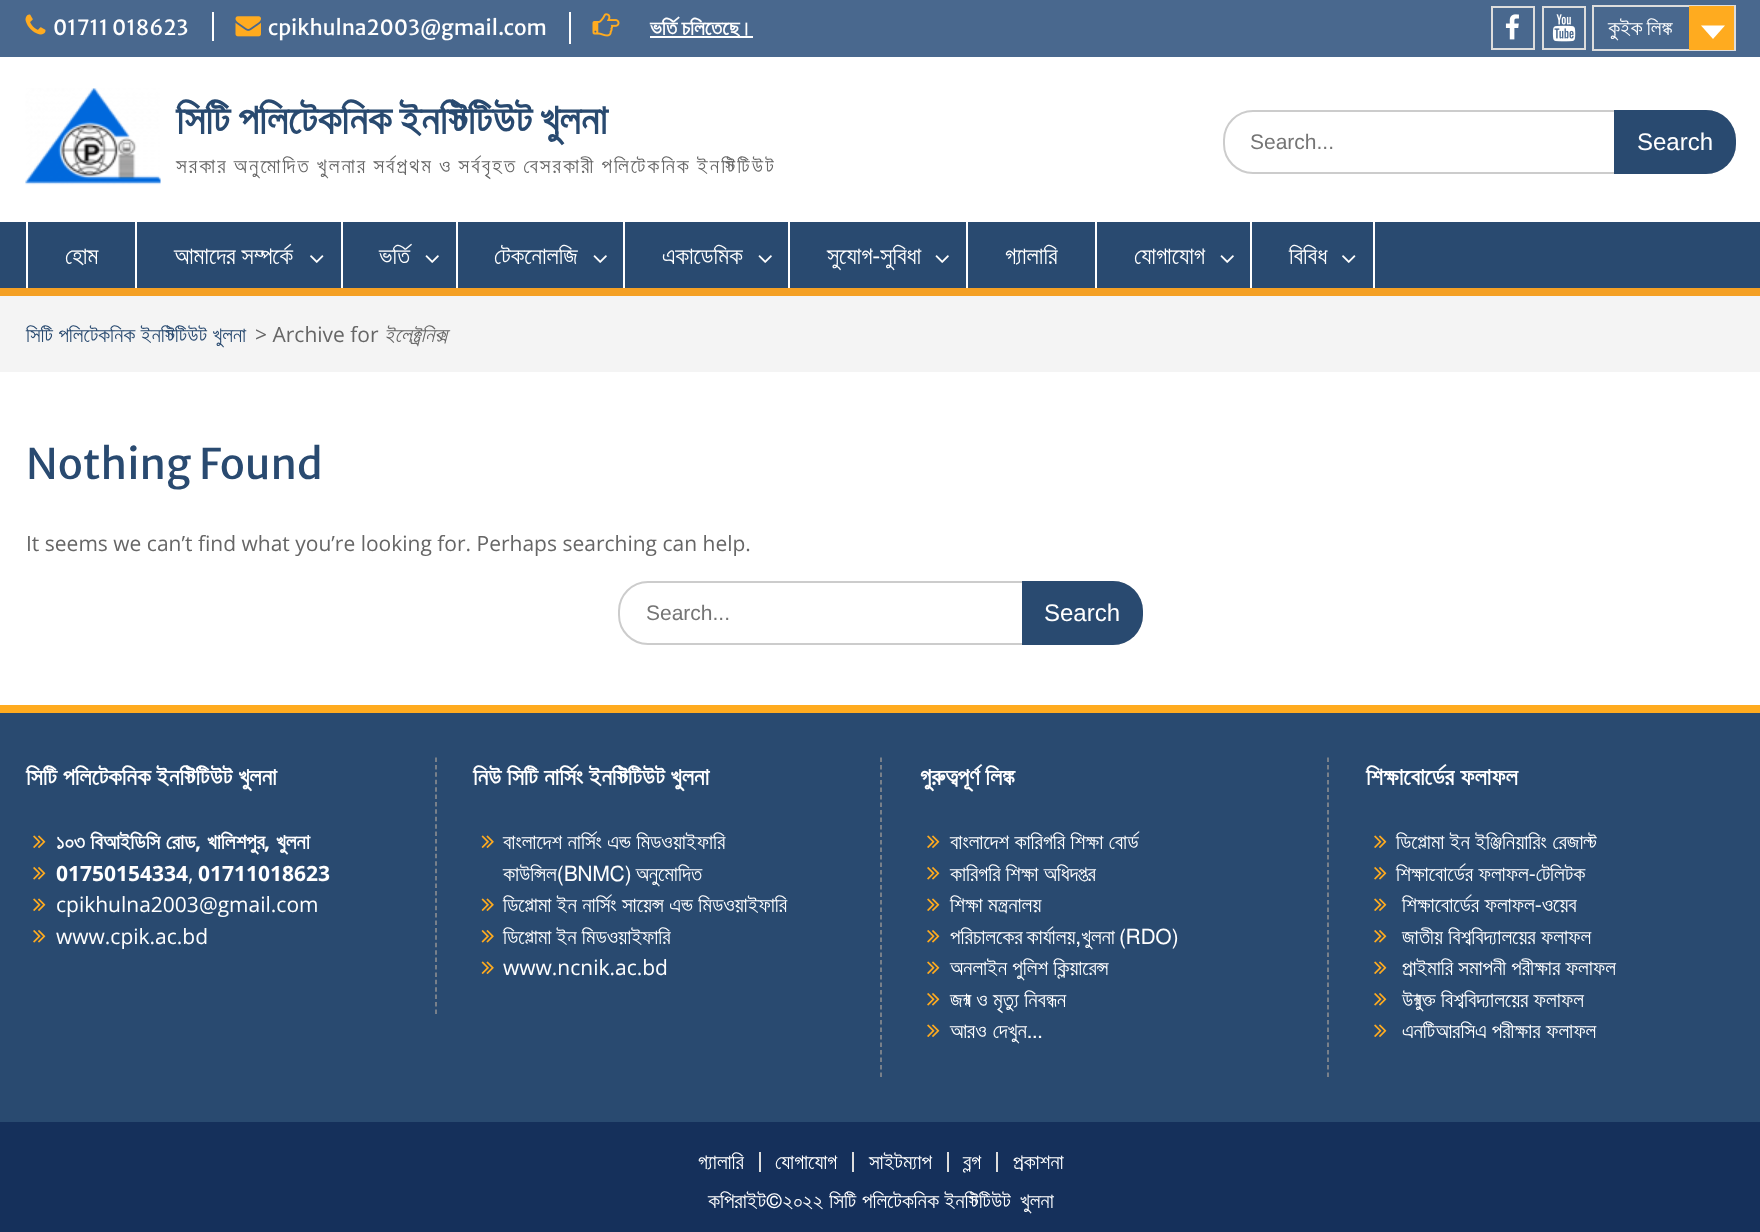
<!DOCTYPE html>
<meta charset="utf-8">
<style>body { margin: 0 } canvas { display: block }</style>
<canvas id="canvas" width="1760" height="1232"></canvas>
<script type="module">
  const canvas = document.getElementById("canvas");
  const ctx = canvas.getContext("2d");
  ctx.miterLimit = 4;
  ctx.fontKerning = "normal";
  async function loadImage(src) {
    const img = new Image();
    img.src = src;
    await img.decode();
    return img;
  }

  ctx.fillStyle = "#ffffff";
  ctx.fillRect(0, 0, 1760, 1232);
  ctx.fillStyle = "#49688e";
  ctx.fillRect(0, 0, 1760, 57);
  ctx.drawImage(await loadImage("img1.png"), 25, 14, 21, 21);
  ctx.font = "21px Merriweather Sans";
  ctx.fillStyle = "#ffffff";
  ctx.fillText("01711 018623", 53, 35);
  ctx.fillRect(212, 12, 2, 29);
  ctx.drawImage(await loadImage("img2.png"), 235, 16, 26, 21);
  ctx.fillText("cpikhulna2003@gmail.com", 268, 35);
  ctx.fillRect(569, 12, 2, 32);
  ctx.drawImage(await loadImage("img3.png"), 592, 13, 28, 24);
  ctx.fillRect(650, 36, 103, 2);
  ctx.wordSpacing = "-1px";
  ctx.font = "bold 21px FreeSans";
  ctx.fillText("ভর্তি চলিতেছে।", 650, 35);
  ctx.strokeStyle = "#dddddd";
  ctx.lineWidth = 2;
  ctx.strokeRect(1492, 7, 42, 42);
  ctx.drawImage(await loadImage("img4.png"), 1505, 14, 14, 26);
  ctx.strokeRect(1543, 7, 42, 42);
  ctx.drawImage(await loadImage("img5.png"), 1552, 14, 24, 28);
  ctx.strokeRect(1593, 6, 142, 44);
  ctx.font = "21px FreeSans";
  ctx.fillText("কুইক লিঙ্ক", 1608, 35);
  ctx.fillStyle = "#ffab1f";
  ctx.fillRect(1689, 6, 45, 44);
  ctx.fillStyle = "#ffffff";
  ctx.beginPath();
  ctx.moveTo(1701, 25.5);
  ctx.lineTo(1725, 25.5);
  ctx.lineTo(1713, 39);
  ctx.closePath();
  ctx.fill();
  ctx.drawImage(await loadImage("img6.png"), 25, 88, 136, 97);
  ctx.wordSpacing = "-2.5px";
  ctx.font = "bold 42px FreeSans";
  ctx.fillStyle = "#294a70";
  ctx.fillText("সিটি পলিটেকনিক ইনস্টিটিউট খুলনা", 176, 134);
  ctx.letterSpacing = "2.1px";
  ctx.wordSpacing = "-1.25px";
  ctx.font = "21px FreeSans";
  ctx.fillStyle = "#666666";
  ctx.fillText("সরকার অনুমোদিত খুলনার সর্বপ্রথম ও সর্ববৃহত বেসরকারী পলিটেকনিক ইনস্টিটিউট", 176, 173);
  ctx.beginPath();
  ctx.roundRect(1224, 111, 511, 62, 29);
  ctx.strokeStyle = "#cccccc";
  ctx.stroke();
  ctx.letterSpacing = "0px";
  ctx.wordSpacing = "0px";
  ctx.font = "21px Liberation Sans";
  ctx.fillStyle = "#757575";
  ctx.fillText("Search...", 1250, 149);
  ctx.fillStyle = "#294a70";
  ctx.beginPath();
  ctx.roundRect(1614, 110, 122, 64, [0, 30, 30, 0]);
  ctx.fill();
  ctx.font = "24px Liberation Sans";
  ctx.fillStyle = "#ffffff";
  ctx.fillText("Search", 1637, 150);
  ctx.fillStyle = "#294a70";
  ctx.fillRect(0, 222, 1760, 66);
  ctx.fillStyle = "#f4a024";
  ctx.fillRect(0, 288, 1760, 8);
  ctx.fillStyle = "#ffffff";
  ctx.fillRect(135, 222, 2, 66);
  ctx.fillRect(26, 222, 2, 66);
  ctx.font = "24px FreeSans";
  ctx.fillText("হোম", 65, 264);
  ctx.fillRect(341, 222, 2, 66);
  ctx.fillText("আমাদের সম্পর্কে", 174, 264);
  ctx.drawImage(await loadImage("img7.png"), 310, 255, 14, 8);
  ctx.fillRect(456, 222, 2, 66);
  ctx.fillText("ভর্তি", 379, 264);
  ctx.drawImage(await loadImage("img8.png"), 425, 255, 14, 8);
  ctx.fillRect(623, 222, 2, 66);
  ctx.fillText("টেকনোলজি", 494, 264);
  ctx.drawImage(await loadImage("img8.png"), 593, 255, 14, 8);
  ctx.fillRect(788, 222, 2, 66);
  ctx.fillText("একাডেমিক", 662, 264);
  ctx.drawImage(await loadImage("img8.png"), 758, 255, 14, 8);
  ctx.fillRect(966, 222, 2, 66);
  ctx.fillText("সুযোগ-সুবিধা", 827, 264);
  ctx.drawImage(await loadImage("img8.png"), 935, 255, 14, 8);
  ctx.fillRect(1095, 222, 2, 66);
  ctx.fillText("গ্যালারি", 1005, 264);
  ctx.fillRect(1250, 222, 2, 66);
  ctx.fillText("যোগাযোগ", 1134, 264);
  ctx.drawImage(await loadImage("img8.png"), 1220, 255, 14, 8);
  ctx.fillRect(1373, 222, 2, 66);
  ctx.fillText("বিবিধ", 1289, 264);
  ctx.drawImage(await loadImage("img7.png"), 1342, 255, 14, 8);
  ctx.fillStyle = "#f4f4f4";
  ctx.fillRect(0, 296, 1760, 76);
  ctx.wordSpacing = "0.25px";
  ctx.font = "21px FreeSans";
  ctx.fillStyle = "#294a70";
  ctx.fillText("সিটি পলিটেকনিক ইনস্টিটিউট খুলনা", 26, 342);
  ctx.wordSpacing = "0px";
  ctx.font = "21px Open Sans";
  ctx.fillStyle = "#666666";
  ctx.fillText("> Archive for", 255, 342);
  ctx.font = "italic 21px FreeSans";
  ctx.fillText("ইলেক্ট্রনিক্স", 384, 342);
  ctx.font = "42px Merriweather Sans";
  ctx.fillStyle = "#294a70";
  ctx.fillText("Nothing Found", 26, 479);
  ctx.font = "21px Open Sans";
  ctx.fillStyle = "#666666";
  ctx.fillText("It seems we can’t find what you’re looking for. Perhaps searching can help.", 26, 551);
  ctx.beginPath();
  ctx.roundRect(619, 582, 523, 62, 29);
  ctx.stroke();
  ctx.font = "21px Liberation Sans";
  ctx.fillStyle = "#757575";
  ctx.fillText("Search...", 646, 620);
  ctx.fillStyle = "#294a70";
  ctx.beginPath();
  ctx.roundRect(1022, 581, 121, 64, [0, 30, 30, 0]);
  ctx.fill();
  ctx.font = "24px Liberation Sans";
  ctx.fillStyle = "#ffffff";
  ctx.fillText("Search", 1044, 621);
  ctx.fillStyle = "#294a70";
  ctx.fillRect(0, 713, 1760, 409);
  ctx.fillStyle = "#ffab1f";
  ctx.fillRect(0, 705, 1760, 8);
  ctx.font = "bold 24px FreeSans";
  ctx.fillStyle = "#ffffff";
  ctx.fillText("সিটি পলিটেকনিক ইনস্টিটিউট খুলনা", 26, 785);
  ctx.drawImage(await loadImage("img9.png"), 33, 835, 13, 13);
  ctx.wordSpacing = "0.25px";
  ctx.font = "bold 21px FreeSans";
  ctx.fillText("১০৩ বিআইডিসি রোড", 56, 849);
  ctx.wordSpacing = "0px";
  ctx.font = "bold 21px Open Sans";
  ctx.fillText(",", 195, 849);
  ctx.font = "bold 21px FreeSans";
  ctx.fillText("খালিশপুর", 207, 849);
  ctx.font = "bold 21px Open Sans";
  ctx.fillText(",", 264, 849);
  ctx.font = "bold 21px FreeSans";
  ctx.fillText("খুলনা", 276, 849);
  ctx.drawImage(await loadImage("img10.png"), 33, 867, 13, 13);
  ctx.font = "bold 21px Open Sans";
  ctx.fillText("01750154334", 56, 881);
  ctx.fillText("01711018623", 198, 881);
  ctx.font = "21px Open Sans";
  ctx.fillText(",", 188, 881);
  ctx.drawImage(await loadImage("img9.png"), 33, 898, 13, 13);
  ctx.fillText("cpikhulna2003@gmail.com", 56, 912);
  ctx.drawImage(await loadImage("img10.png"), 33, 930, 13, 13);
  ctx.fillText("www.cpik.ac.bd", 56, 944);
  ctx.beginPath();
  ctx.moveTo(436, 757.5);
  ctx.lineTo(436, 1014);
  ctx.strokeStyle = "#939393";
  ctx.lineWidth = 1.5;
  ctx.setLineDash([4.5, 2.91]);
  ctx.stroke();
  ctx.font = "bold 24px FreeSans";
  ctx.fillText("নিউ সিটি নার্সিং ইনস্টিটিউট খুলনা", 473, 785);
  ctx.drawImage(await loadImage("img11.png"), 481, 835, 13, 13);
  ctx.wordSpacing = "0.25px";
  ctx.font = "21px FreeSans";
  ctx.fillText("বাংলাদেশ নার্সিং এন্ড মিডওয়াইফারি", 503, 849);
  ctx.wordSpacing = "-1.25px";
  ctx.fillText("কাউন্সিল(BNMC) অনুমোদিত", 503, 881);
  ctx.drawImage(await loadImage("img11.png"), 481, 898, 13, 13);
  ctx.wordSpacing = "0.25px";
  ctx.fillText("ডিপ্লোমা ইন নার্সিং সায়েন্স এন্ড মিডওয়াইফারি", 503, 912);
  ctx.drawImage(await loadImage("img12.png"), 481, 930, 13, 13);
  ctx.wordSpacing = "0px";
  ctx.fillText("ডিপ্লোমা ইন মিডওয়াইফারি", 503, 944);
  ctx.drawImage(await loadImage("img11.png"), 481, 961, 13, 13);
  ctx.font = "21px Open Sans";
  ctx.fillText("www.ncnik.ac.bd", 503, 975);
  ctx.beginPath();
  ctx.moveTo(881, 757.5);
  ctx.lineTo(881, 1077);
  ctx.setLineDash([4.5, 3]);
  ctx.stroke();
  ctx.font = "bold 24px FreeSans";
  ctx.fillText("গুরুত্বপূর্ণ লিঙ্ক", 920, 785);
  ctx.drawImage(await loadImage("img9.png"), 927, 835, 13, 13);
  ctx.wordSpacing = "0.25px";
  ctx.font = "21px FreeSans";
  ctx.fillText("বাংলাদেশ কারিগরি শিক্ষা বোর্ড", 950, 849);
  ctx.drawImage(await loadImage("img10.png"), 927, 867, 13, 13);
  ctx.wordSpacing = "0px";
  ctx.fillText("কারিগরি শিক্ষা অধিদপ্তর", 950, 881);
  ctx.drawImage(await loadImage("img9.png"), 927, 898, 13, 13);
  ctx.fillText("শিক্ষা মন্ত্রনালয়", 950, 912);
  ctx.drawImage(await loadImage("img10.png"), 927, 930, 13, 13);
  ctx.wordSpacing = "-1.25px";
  ctx.fillText("পরিচালকের কার্যালয়,খুলনা (RDO)", 950, 944);
  ctx.drawImage(await loadImage("img9.png"), 927, 961, 13, 13);
  ctx.wordSpacing = "0px";
  ctx.fillText("অনলাইন পুলিশ ক্লিয়ারেন্স", 950, 975);
  ctx.drawImage(await loadImage("img10.png"), 927, 993, 13, 13);
  ctx.fillText("জন্ম ও মৃত্যু নিবন্ধন", 950, 1007);
  ctx.drawImage(await loadImage("img9.png"), 927, 1024, 13, 13);
  ctx.wordSpacing = "1px";
  ctx.fillText("আরও দেখুন...", 950, 1038);
  ctx.beginPath();
  ctx.moveTo(1328, 757.5);
  ctx.lineTo(1328, 1077);
  ctx.stroke();
  ctx.wordSpacing = "0px";
  ctx.font = "bold 24px FreeSans";
  ctx.fillText("শিক্ষাবোর্ডের ফলাফল", 1366, 785);
  ctx.drawImage(await loadImage("img9.png"), 1374, 835, 13, 13);
  ctx.wordSpacing = "0.25px";
  ctx.font = "21px FreeSans";
  ctx.fillText("ডিপ্লোমা ইন ইঞ্জিনিয়ারিং রেজাল্ট", 1396, 849);
  ctx.drawImage(await loadImage("img10.png"), 1374, 867, 13, 13);
  ctx.wordSpacing = "0px";
  ctx.fillText("শিক্ষাবোর্ডের ফলাফল-টেলিটক", 1396, 881);
  ctx.drawImage(await loadImage("img9.png"), 1374, 898, 13, 13);
  ctx.fillText("শিক্ষাবোর্ডের ফলাফল-ওয়েব", 1402, 912);
  ctx.drawImage(await loadImage("img10.png"), 1374, 930, 13, 13);
  ctx.fillText("জাতীয় বিশ্ববিদ্যালয়ের ফলাফল", 1402, 944);
  ctx.drawImage(await loadImage("img9.png"), 1374, 961, 13, 13);
  ctx.fillText("প্রাইমারি সমাপনী পরীক্ষার ফলাফল", 1402, 975);
  ctx.drawImage(await loadImage("img10.png"), 1374, 993, 13, 13);
  ctx.fillText("উন্মুক্ত বিশ্ববিদ্যালয়ের ফলাফল", 1402, 1007);
  ctx.drawImage(await loadImage("img9.png"), 1374, 1024, 13, 13);
  ctx.fillText("এনটিআরসিএ পরীক্ষার ফলাফল", 1402, 1038);
  ctx.fillStyle = "#15305b";
  ctx.fillRect(0, 1122, 1760, 110);
  ctx.fillStyle = "#ffffff";
  ctx.fillText("গ্যালারি", 698, 1169);
  ctx.fillStyle = "#dddddd";
  ctx.fillRect(759, 1152, 2, 20);
  ctx.fillStyle = "#ffffff";
  ctx.fillText("যোগাযোগ", 775, 1169);
  ctx.fillStyle = "#dddddd";
  ctx.fillRect(852, 1152, 2, 20);
  ctx.fillStyle = "#ffffff";
  ctx.fillText("সাইটম্যাপ", 869, 1169);
  ctx.fillStyle = "#dddddd";
  ctx.fillRect(947, 1152, 2, 20);
  ctx.fillStyle = "#ffffff";
  ctx.fillText("ব্লগ", 963, 1169);
  ctx.fillStyle = "#dddddd";
  ctx.fillRect(996, 1152, 2, 20);
  ctx.fillStyle = "#ffffff";
  ctx.fillText("প্রকাশনা", 1013, 1169);
  ctx.wordSpacing = "0.5px";
  ctx.fillText("কপিরাইট©২০২২ সিটি পলিটেকনিক ইনস্টিটিউট", 708, 1208);
  ctx.wordSpacing = "0px";
  ctx.fillText("খুলনা", 1020, 1208);
</script>
